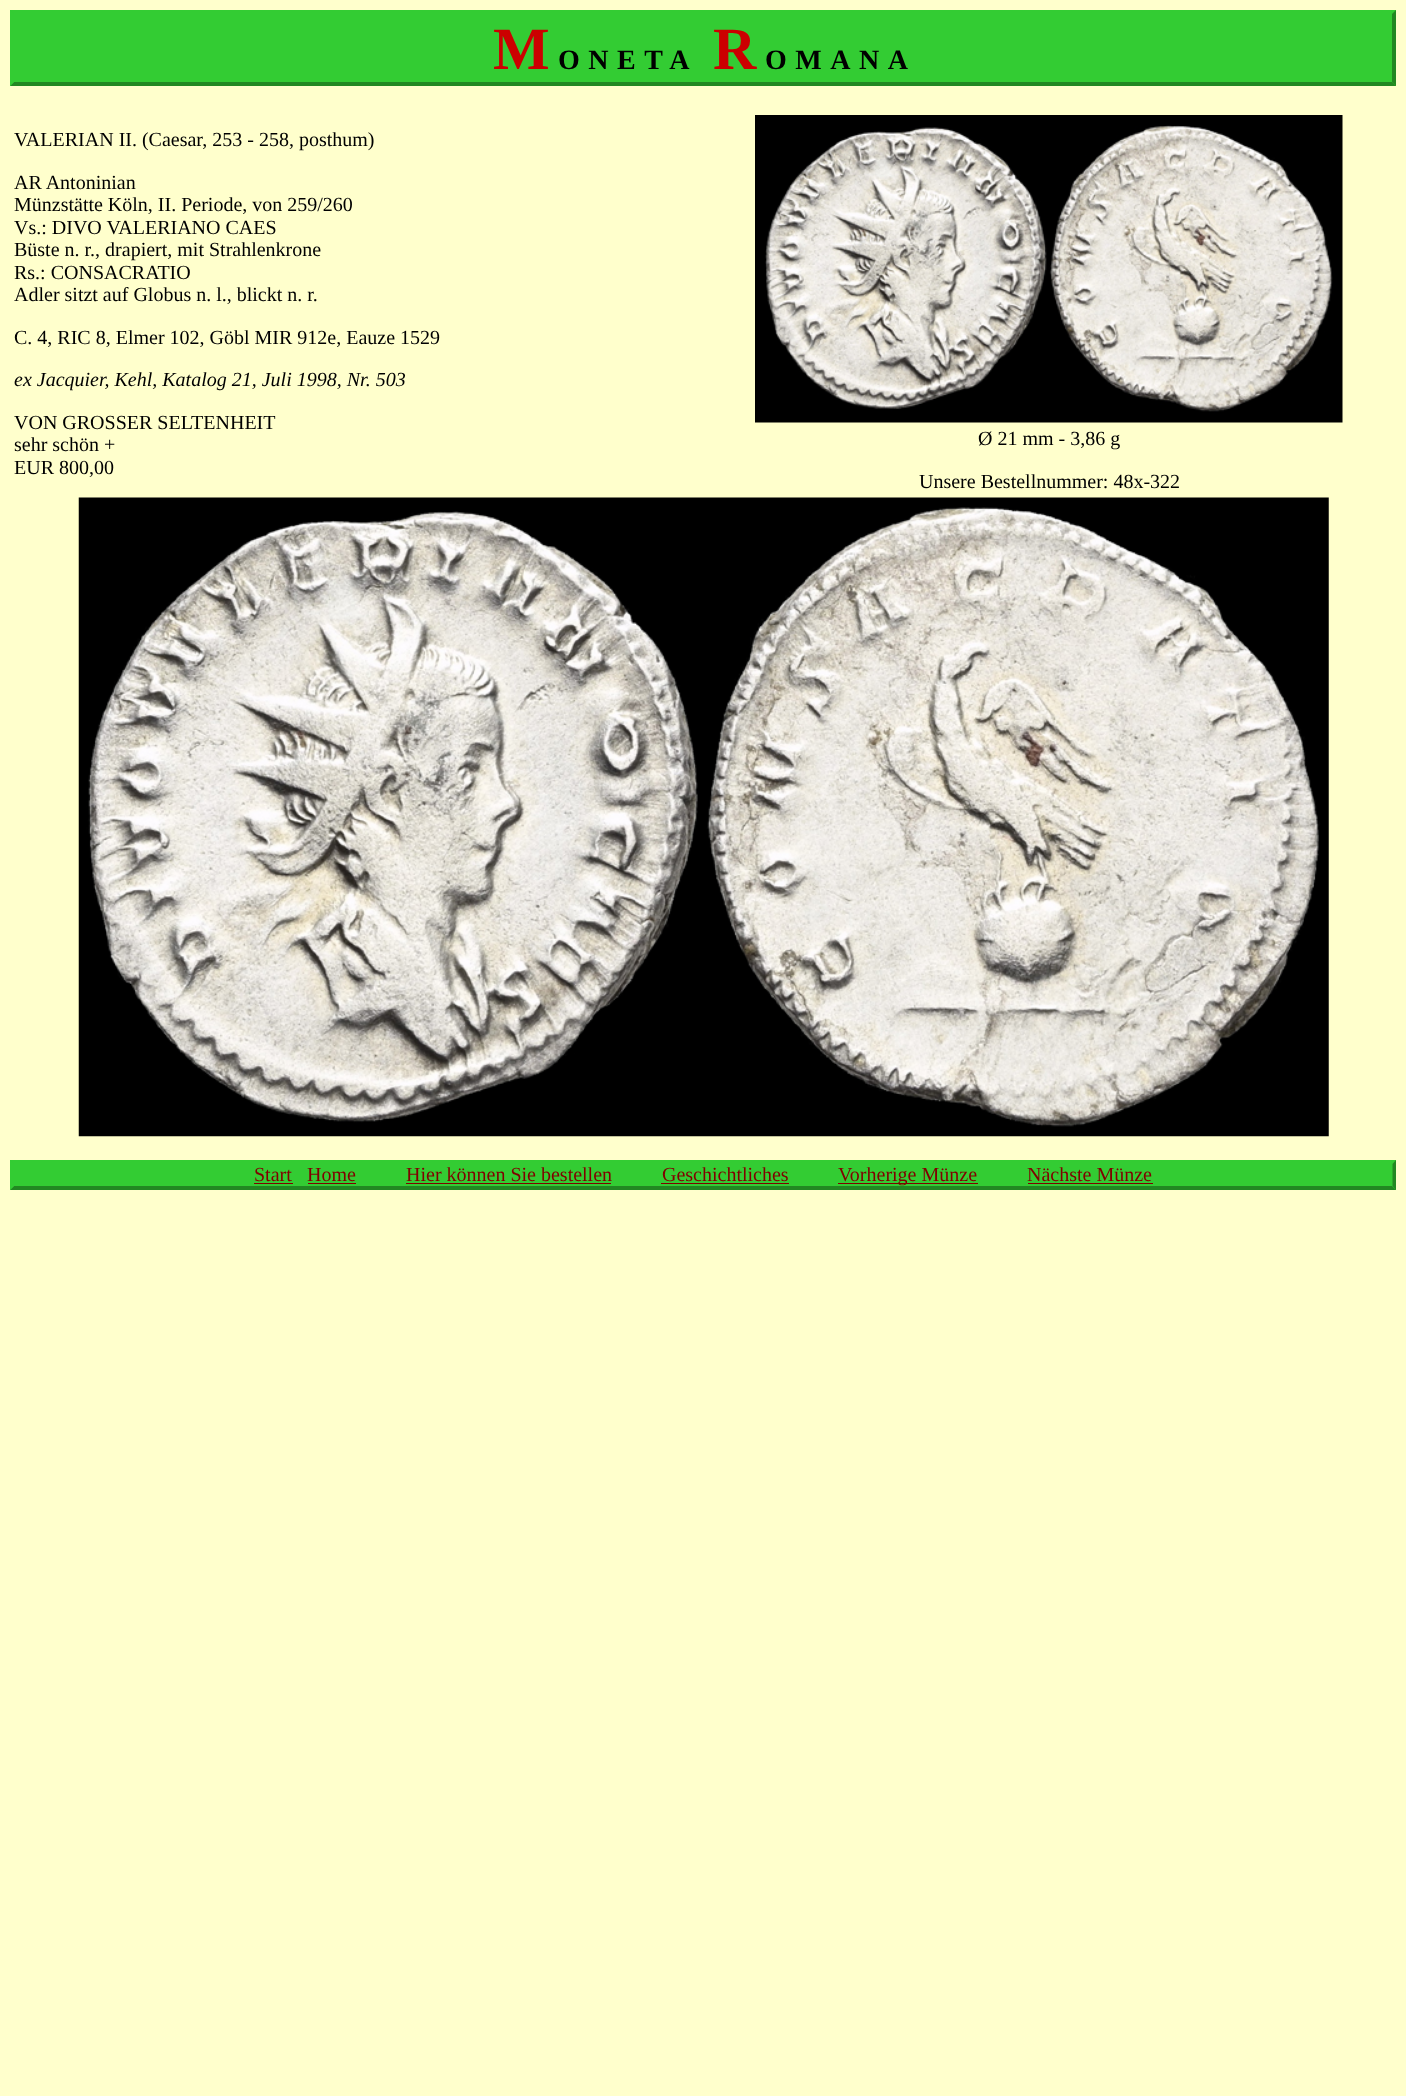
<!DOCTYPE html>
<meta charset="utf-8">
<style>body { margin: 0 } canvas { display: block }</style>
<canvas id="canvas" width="1406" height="2096"></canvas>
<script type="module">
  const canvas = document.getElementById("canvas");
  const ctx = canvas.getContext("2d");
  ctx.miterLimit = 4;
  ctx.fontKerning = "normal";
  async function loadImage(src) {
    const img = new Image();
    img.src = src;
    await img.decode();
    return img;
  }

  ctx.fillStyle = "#ffffcc";
  ctx.fillRect(0, 0, 1406, 2096);
  ctx.fillStyle = "#33cc33";
  ctx.fillRect(10, 10, 1386, 76);
  ctx.fillStyle = "#228822";
  ctx.beginPath();
  ctx.moveTo(1396, 10);
  ctx.lineTo(1396, 86);
  ctx.lineTo(1392, 82);
  ctx.lineTo(1392, 14);
  ctx.closePath();
  ctx.fill();
  ctx.beginPath();
  ctx.moveTo(1396, 86);
  ctx.lineTo(10, 86);
  ctx.lineTo(14, 82);
  ctx.lineTo(1392, 82);
  ctx.closePath();
  ctx.fill();
  ctx.fillStyle = "#33cc33";
  ctx.beginPath();
  ctx.moveTo(10, 86);
  ctx.lineTo(10, 10);
  ctx.lineTo(14, 14);
  ctx.lineTo(14, 82);
  ctx.closePath();
  ctx.fill();
  ctx.letterSpacing = "8.5px";
  ctx.font = "bold 60px Liberation Serif";
  ctx.fillStyle = "#cc0000";
  ctx.fillText("M", 493, 69);
  ctx.font = "bold 28px Liberation Serif";
  ctx.fillStyle = "#000000";
  ctx.fillText("ONETA", 558, 69);
  ctx.font = "bold 60px Liberation Serif";
  ctx.fillStyle = "#cc0000";
  ctx.fillText("R", 713, 69);
  ctx.font = "bold 28px Liberation Serif";
  ctx.fillStyle = "#000000";
  ctx.fillText("OMANA", 765, 69);
  ctx.letterSpacing = "0px";
  ctx.font = "20px Liberation Serif";
  ctx.fillText("VALERIAN II. (Caesar, 253 - 258, posthum)", 14, 146);
  ctx.fillText("AR Antoninian", 14, 189);
  ctx.fillText("Münzstätte Köln, II. Periode, von 259/260", 14, 211);
  ctx.fillText("Vs.: DIVO VALERIANO CAES", 14, 234);
  ctx.fillText("Büste n. r., drapiert, mit Strahlenkrone", 14, 256);
  ctx.fillText("Rs.: CONSACRATIO", 14, 279);
  ctx.fillText("Adler sitzt auf Globus n. l., blickt n. r.", 14, 301);
  ctx.fillText("C. 4, RIC 8, Elmer 102, Göbl MIR 912e, Eauze 1529", 14, 344);
  ctx.font = "italic 20px Liberation Serif";
  ctx.fillText("ex Jacquier, Kehl, Katalog 21, Juli 1998, Nr. 503", 14, 386);
  ctx.font = "20px Liberation Serif";
  ctx.fillText("VON GROSSER SELTENHEIT", 14, 429);
  ctx.fillText("sehr schön +", 14, 451);
  ctx.fillText("EUR 800,00", 14, 474);
  ctx.drawImage(await loadImage("img1.png"), 755, 115, 588, 308);
  ctx.fillText("Ø 21 mm - 3,86 g", 978, 445);
  ctx.fillText("Unsere Bestellnummer: 48x-322", 919, 488);
  ctx.drawImage(await loadImage("img2.png"), 78, 497, 1251, 640);
  ctx.fillStyle = "#33cc33";
  ctx.fillRect(10, 1160, 1386, 30);
  ctx.fillStyle = "#228822";
  ctx.beginPath();
  ctx.moveTo(1396, 1160);
  ctx.lineTo(1396, 1190);
  ctx.lineTo(1392.5, 1186);
  ctx.lineTo(1392.5, 1164);
  ctx.closePath();
  ctx.fill();
  ctx.beginPath();
  ctx.moveTo(1396, 1190);
  ctx.lineTo(10, 1190);
  ctx.lineTo(14, 1186);
  ctx.lineTo(1392, 1186);
  ctx.closePath();
  ctx.fill();
  ctx.fillStyle = "#33cc33";
  ctx.beginPath();
  ctx.moveTo(10, 1190);
  ctx.lineTo(10, 1160);
  ctx.lineTo(14, 1164);
  ctx.lineTo(14, 1186);
  ctx.closePath();
  ctx.fill();
  ctx.fillStyle = "#800000";
  ctx.fillText("Start", 254, 1181);
  ctx.fillRect(254, 1183, 39, 1);
  ctx.fillText("Home", 307, 1181);
  ctx.fillRect(308, 1183, 48, 1);
  ctx.fillText("Hier können Sie bestellen", 406, 1181);
  ctx.fillRect(406, 1183, 205, 1);
  ctx.fillText("Geschichtliches", 662, 1181);
  ctx.fillRect(661, 1183, 128, 1);
  ctx.fillRect(838, 1183, 140, 1);
  ctx.fillText("Vorherige Münze", 838, 1181);
  ctx.fillText("Nächste Münze", 1027, 1181);
  ctx.fillRect(1028, 1183, 125, 1);
</script>
